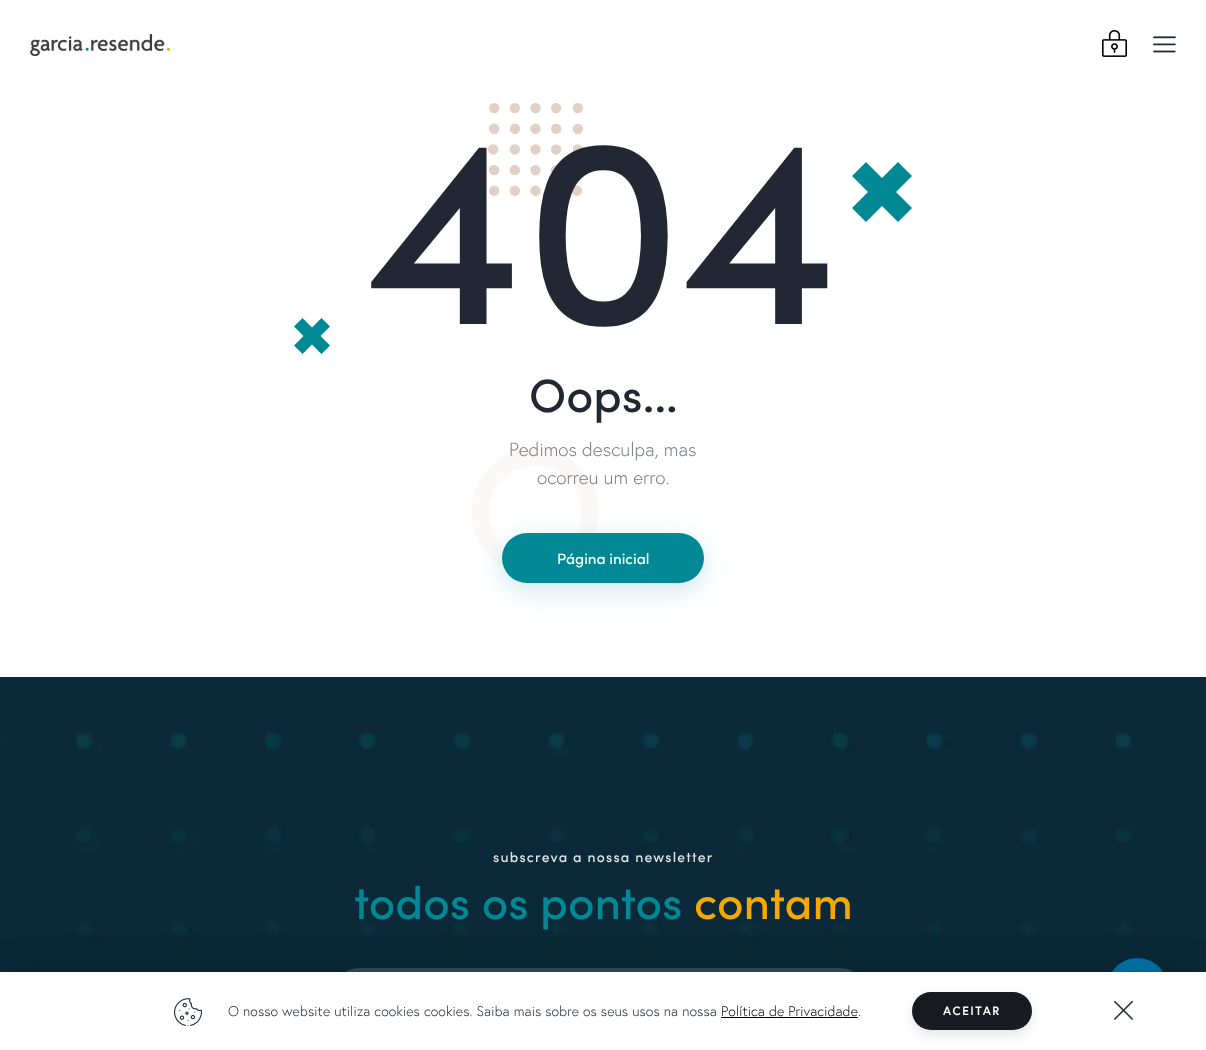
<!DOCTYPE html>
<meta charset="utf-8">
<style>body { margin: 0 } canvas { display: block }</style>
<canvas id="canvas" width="1206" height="1050"></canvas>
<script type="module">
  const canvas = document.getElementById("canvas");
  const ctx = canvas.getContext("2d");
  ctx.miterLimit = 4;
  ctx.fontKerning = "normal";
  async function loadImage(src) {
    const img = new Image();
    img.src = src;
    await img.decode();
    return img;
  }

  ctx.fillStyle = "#ffffff";
  ctx.fillRect(0, 0, 1206, 1050);
  ctx.drawImage(await loadImage("img1.png"), 30, 34, 140, 22);
  ctx.drawImage(await loadImage("img2.png"), 1102, 30, 25, 27);
  ctx.drawImage(await loadImage("img3.png"), 1153, 36, 23, 17);
  ctx.drawImage(await loadImage("img4.png"), 488, 103, 95, 93);
  ctx.fillStyle = "#008995";
  ctx.beginPath();
  ctx.moveTo(852, 208);
  ctx.lineTo(868, 192);
  ctx.lineTo(852, 176);
  ctx.lineTo(866, 162);
  ctx.lineTo(882, 178);
  ctx.lineTo(898, 162);
  ctx.lineTo(912, 176);
  ctx.lineTo(896, 192);
  ctx.lineTo(912, 208);
  ctx.lineTo(898, 222);
  ctx.lineTo(882, 206);
  ctx.lineTo(866, 222);
  ctx.closePath();
  ctx.fill();
  ctx.beginPath();
  ctx.moveTo(294, 345.5);
  ctx.lineTo(303.5, 336);
  ctx.lineTo(294, 326.5);
  ctx.lineTo(302.5, 318);
  ctx.lineTo(312, 327.5);
  ctx.lineTo(321.5, 318);
  ctx.lineTo(330, 326.5);
  ctx.lineTo(320.5, 336);
  ctx.lineTo(330, 345.5);
  ctx.lineTo(321.5, 354);
  ctx.lineTo(312, 344.5);
  ctx.lineTo(302.5, 354);
  ctx.closePath();
  ctx.fill();
  ctx.beginPath();
  ctx.arc(535, 512, 55, 0, Math.PI * 2);
  ctx.strokeStyle = "#fbf9f8";
  ctx.lineWidth = 17.3;
  ctx.stroke();
  ctx.font = "500 270px Sofia";
  ctx.fillStyle = "#222733";
  ctx.fillText("404", 368, 324);
  ctx.font = "500 47px Sofia";
  ctx.fillText("Oops...", 529, 412);
  ctx.font = "300 19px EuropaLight";
  ctx.fillStyle = "#7a7e83";
  ctx.fillText("Pedimos desculpa, mas", 509, 456);
  ctx.fillText("ocorreu um erro.", 537, 484);
  ctx.fillStyle = "rgba(0, 137, 149, 0.2)";
  ctx.filter = "blur(12.5px)";
  ctx.beginPath();
  ctx.roundRect(502, 540, 202, 50, 25);
  ctx.fill();
  ctx.filter = "none";
  ctx.fillStyle = "#008995";
  ctx.beginPath();
  ctx.roundRect(502, 533, 202, 50, 25);
  ctx.fill();
  ctx.font = "500 15px Sofia";
  ctx.fillStyle = "#ffffff";
  ctx.fillText("Página inicial", 557, 564);
  ctx.drawImage(await loadImage("img5.png"), 0, 677, 1206, 295);
  ctx.letterSpacing = "1.2px";
  ctx.font = "500 14px Sofia";
  ctx.fillStyle = "#e1e4e6";
  ctx.fillText("subscreva a nossa newsletter", 493, 862);
  ctx.letterSpacing = "0px";
  ctx.font = "500 46px Sofia";
  ctx.fillStyle = "#008995";
  ctx.fillText("todos os pontos", 354, 919);
  ctx.fillStyle = "#f5a800";
  ctx.fillText("contam", 694, 919);
  ctx.fillStyle = "#334b5d";
  ctx.beginPath();
  ctx.roundRect(332, 968, 535, 55, 27.5);
  ctx.fill();
  ctx.fillStyle = "#808080";
  ctx.filter = "blur(2.5px)";
  ctx.beginPath();
  ctx.roundRect(1136, 976, 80, 60, 2);
  ctx.fill();
  ctx.filter = "none";
  ctx.fillStyle = "#0073aa";
  ctx.beginPath();
  ctx.ellipse(1137.5, 984, 28.5, 26, 0, 0, Math.PI * 2);
  ctx.fill();
  ctx.fillStyle = "rgba(0, 0, 0, 0.1)";
  ctx.filter = "blur(23px)";
  ctx.beginPath();
  ctx.rect(0, 975, 1206, 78);
  ctx.fill();
  ctx.filter = "none";
  ctx.fillStyle = "rgba(0, 0, 0, 0.07)";
  ctx.filter = "blur(20px)";
  ctx.beginPath();
  ctx.rect(0, 972, 1206, 78);
  ctx.fill();
  ctx.filter = "none";
  ctx.fillStyle = "#ffffff";
  ctx.fillRect(0, 972, 1206, 78);
  ctx.drawImage(await loadImage("img6.png"), 174, 998, 28, 29);
  ctx.letterSpacing = "0.1px";
  ctx.font = "300 14px EuropaLight";
  ctx.fillStyle = "#222733";
  ctx.fillText("O nosso website utiliza cookies cookies. Saiba mais sobre os seus usos na nossa", 228, 1016);
  ctx.fillStyle = "#000000";
  ctx.fillText("Política de Privacidade", 721, 1016);
  ctx.fillRect(721, 1017, 137, 1);
  ctx.fillStyle = "#222733";
  ctx.fillText(".", 858, 1016);
  ctx.fillStyle = "rgba(0, 0, 0, 0.1)";
  ctx.filter = "blur(6px)";
  ctx.beginPath();
  ctx.roundRect(912, 997, 120, 38, 19);
  ctx.fill();
  ctx.filter = "none";
  ctx.fillStyle = "#171a21";
  ctx.beginPath();
  ctx.roundRect(912, 992, 120, 38, 19);
  ctx.fill();
  ctx.letterSpacing = "1.5px";
  ctx.font = "bold 12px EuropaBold";
  ctx.fillStyle = "#ffffff";
  ctx.fillText("ACEITAR", 943, 1015);
  ctx.drawImage(await loadImage("img7.png"), 1114, 1000, 19, 20);
</script>
